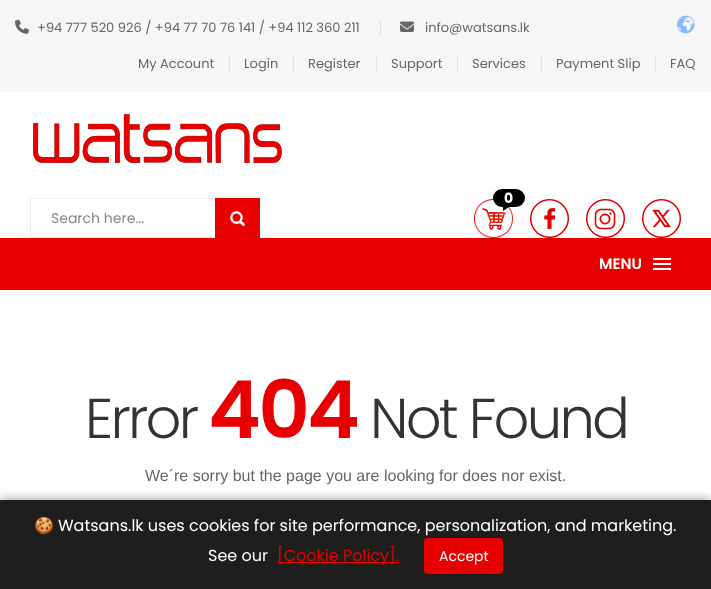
<!DOCTYPE html>
<meta charset="utf-8">
<style>body { margin: 0 } canvas { display: block }</style>
<canvas id="canvas" width="711" height="589"></canvas>
<script type="module">
  const canvas = document.getElementById("canvas");
  const ctx = canvas.getContext("2d");
  ctx.miterLimit = 4;
  ctx.fontKerning = "normal";
  async function loadImage(src) {
    const img = new Image();
    img.src = src;
    await img.decode();
    return img;
  }

  ctx.fillStyle = "#ffffff";
  ctx.fillRect(0, 0, 711, 589);
  ctx.fillStyle = "#f6f6f6";
  ctx.fillRect(0, 0, 711, 92);
  ctx.drawImage(await loadImage("img1.png"), 676, 15, 19, 19);
  ctx.drawImage(await loadImage("img2.png"), 15, 19, 14, 15);
  ctx.font = "13px Poppins";
  ctx.fillStyle = "#666666";
  ctx.fillText("+94 777 520 926 / +94 77 70 76 141 / +94 112 360 211", 37, 32);
  ctx.fillStyle = "#e0e0e0";
  ctx.fillRect(380, 20, 1, 16);
  ctx.drawImage(await loadImage("img3.png"), 400, 21, 14, 11);
  ctx.fillStyle = "#666666";
  ctx.fillText("info@watsans.lk", 425, 32);
  ctx.fillText("My Account", 138, 68);
  ctx.fillStyle = "#e0e0e0";
  ctx.fillRect(229, 56, 1, 16);
  ctx.fillStyle = "#666666";
  ctx.fillText("Login", 244, 68);
  ctx.fillStyle = "#e0e0e0";
  ctx.fillRect(293, 56, 1, 16);
  ctx.fillStyle = "#666666";
  ctx.fillText("Register", 308, 68);
  ctx.fillStyle = "#e0e0e0";
  ctx.fillRect(376, 56, 1, 16);
  ctx.fillStyle = "#666666";
  ctx.fillText("Support", 391, 68);
  ctx.fillStyle = "#e0e0e0";
  ctx.fillRect(457, 56, 1, 16);
  ctx.fillStyle = "#666666";
  ctx.fillText("Services", 472, 68);
  ctx.fillStyle = "#e0e0e0";
  ctx.fillRect(541, 56, 1, 16);
  ctx.fillStyle = "#666666";
  ctx.fillText("Payment Slip", 556, 68);
  ctx.fillStyle = "#e0e0e0";
  ctx.fillRect(655, 56, 1, 16);
  ctx.fillStyle = "#666666";
  ctx.fillText("FAQ", 670, 68);
  ctx.drawImage(await loadImage("img4.png"), 33, 114, 249, 49);
  ctx.drawImage(await loadImage("img5.png"), 474, 199, 39, 39);
  ctx.fillStyle = "#000000";
  ctx.beginPath();
  ctx.roundRect(493, 189, 32, 18, 9);
  ctx.fill();
  ctx.font = "bold 14px Poppins";
  ctx.fillStyle = "#ffffff";
  ctx.fillText("0", 504, 203);
  ctx.fillStyle = "#000000";
  ctx.beginPath();
  ctx.moveTo(503, 207);
  ctx.lineTo(509, 207);
  ctx.lineTo(503, 211);
  ctx.closePath();
  ctx.fill();
  ctx.drawImage(await loadImage("img6.png"), 530, 199, 39, 39);
  ctx.drawImage(await loadImage("img7.png"), 586, 199, 39, 39);
  ctx.drawImage(await loadImage("img8.png"), 642, 199, 39, 39);
  ctx.strokeStyle = "#eeeeee";
  ctx.strokeRect(30.5, 198.5, 229, 39);
  ctx.font = "14px Poppins";
  ctx.fillStyle = "#888888";
  ctx.fillText("Search here...", 51, 223);
  ctx.fillStyle = "#e80000";
  ctx.fillRect(215, 198, 45, 40);
  ctx.drawImage(await loadImage("img9.png"), 230, 211, 15, 15);
  ctx.fillRect(0, 238, 711, 52);
  ctx.drawImage(await loadImage("img10.png"), 653, 258, 18, 12);
  ctx.font = "600 15px Poppins";
  ctx.fillStyle = "#ffffff";
  ctx.fillText("MENU", 599, 269);
  ctx.letterSpacing = "-2.75px";
  ctx.font = "300 56px Poppins";
  ctx.fillStyle = "#333333";
  ctx.fillText("Error", 85, 438);
  ctx.font = "600 80px Poppins";
  ctx.fillStyle = "#e80000";
  ctx.fillText("404", 208, 438);
  ctx.font = "300 56px Poppins";
  ctx.fillStyle = "#333333";
  ctx.fillText("Not Found", 370, 438);
  ctx.letterSpacing = "0px";
  ctx.font = "16px Liberation Sans";
  ctx.fillStyle = "#666666";
  ctx.fillText("We´re sorry but the page you are looking for does nor exist.", 145, 481);
  ctx.fillStyle = "rgba(0, 0, 0, 0.3)";
  ctx.filter = "blur(5px)";
  ctx.beginPath();
  ctx.rect(0, 498, 711, 89);
  ctx.fill();
  ctx.filter = "none";
  ctx.fillStyle = "#1e1e1e";
  ctx.fillRect(0, 500, 711, 89);
  ctx.font = "16px Noto Color Emoji";
  ctx.fillStyle = "#ffffff";
  ctx.fillText("🍪", 34, 531);
  ctx.font = "16px Poppins";
  ctx.fillText("Watsans.lk uses cookies for site performance, personalization, and marketing.", 58, 531);
  ctx.fillText("See our", 208, 561);
  ctx.fillStyle = "#e80000";
  ctx.fillRect(277, 562, 122, 1);
  ctx.fillText("[Cookie Policy].", 277, 561);
  ctx.beginPath();
  ctx.roundRect(424, 538, 79, 36, 4);
  ctx.fill();
  ctx.font = "14px Poppins";
  ctx.fillStyle = "#ffffff";
  ctx.fillText("Accept", 439, 561);
</script>
